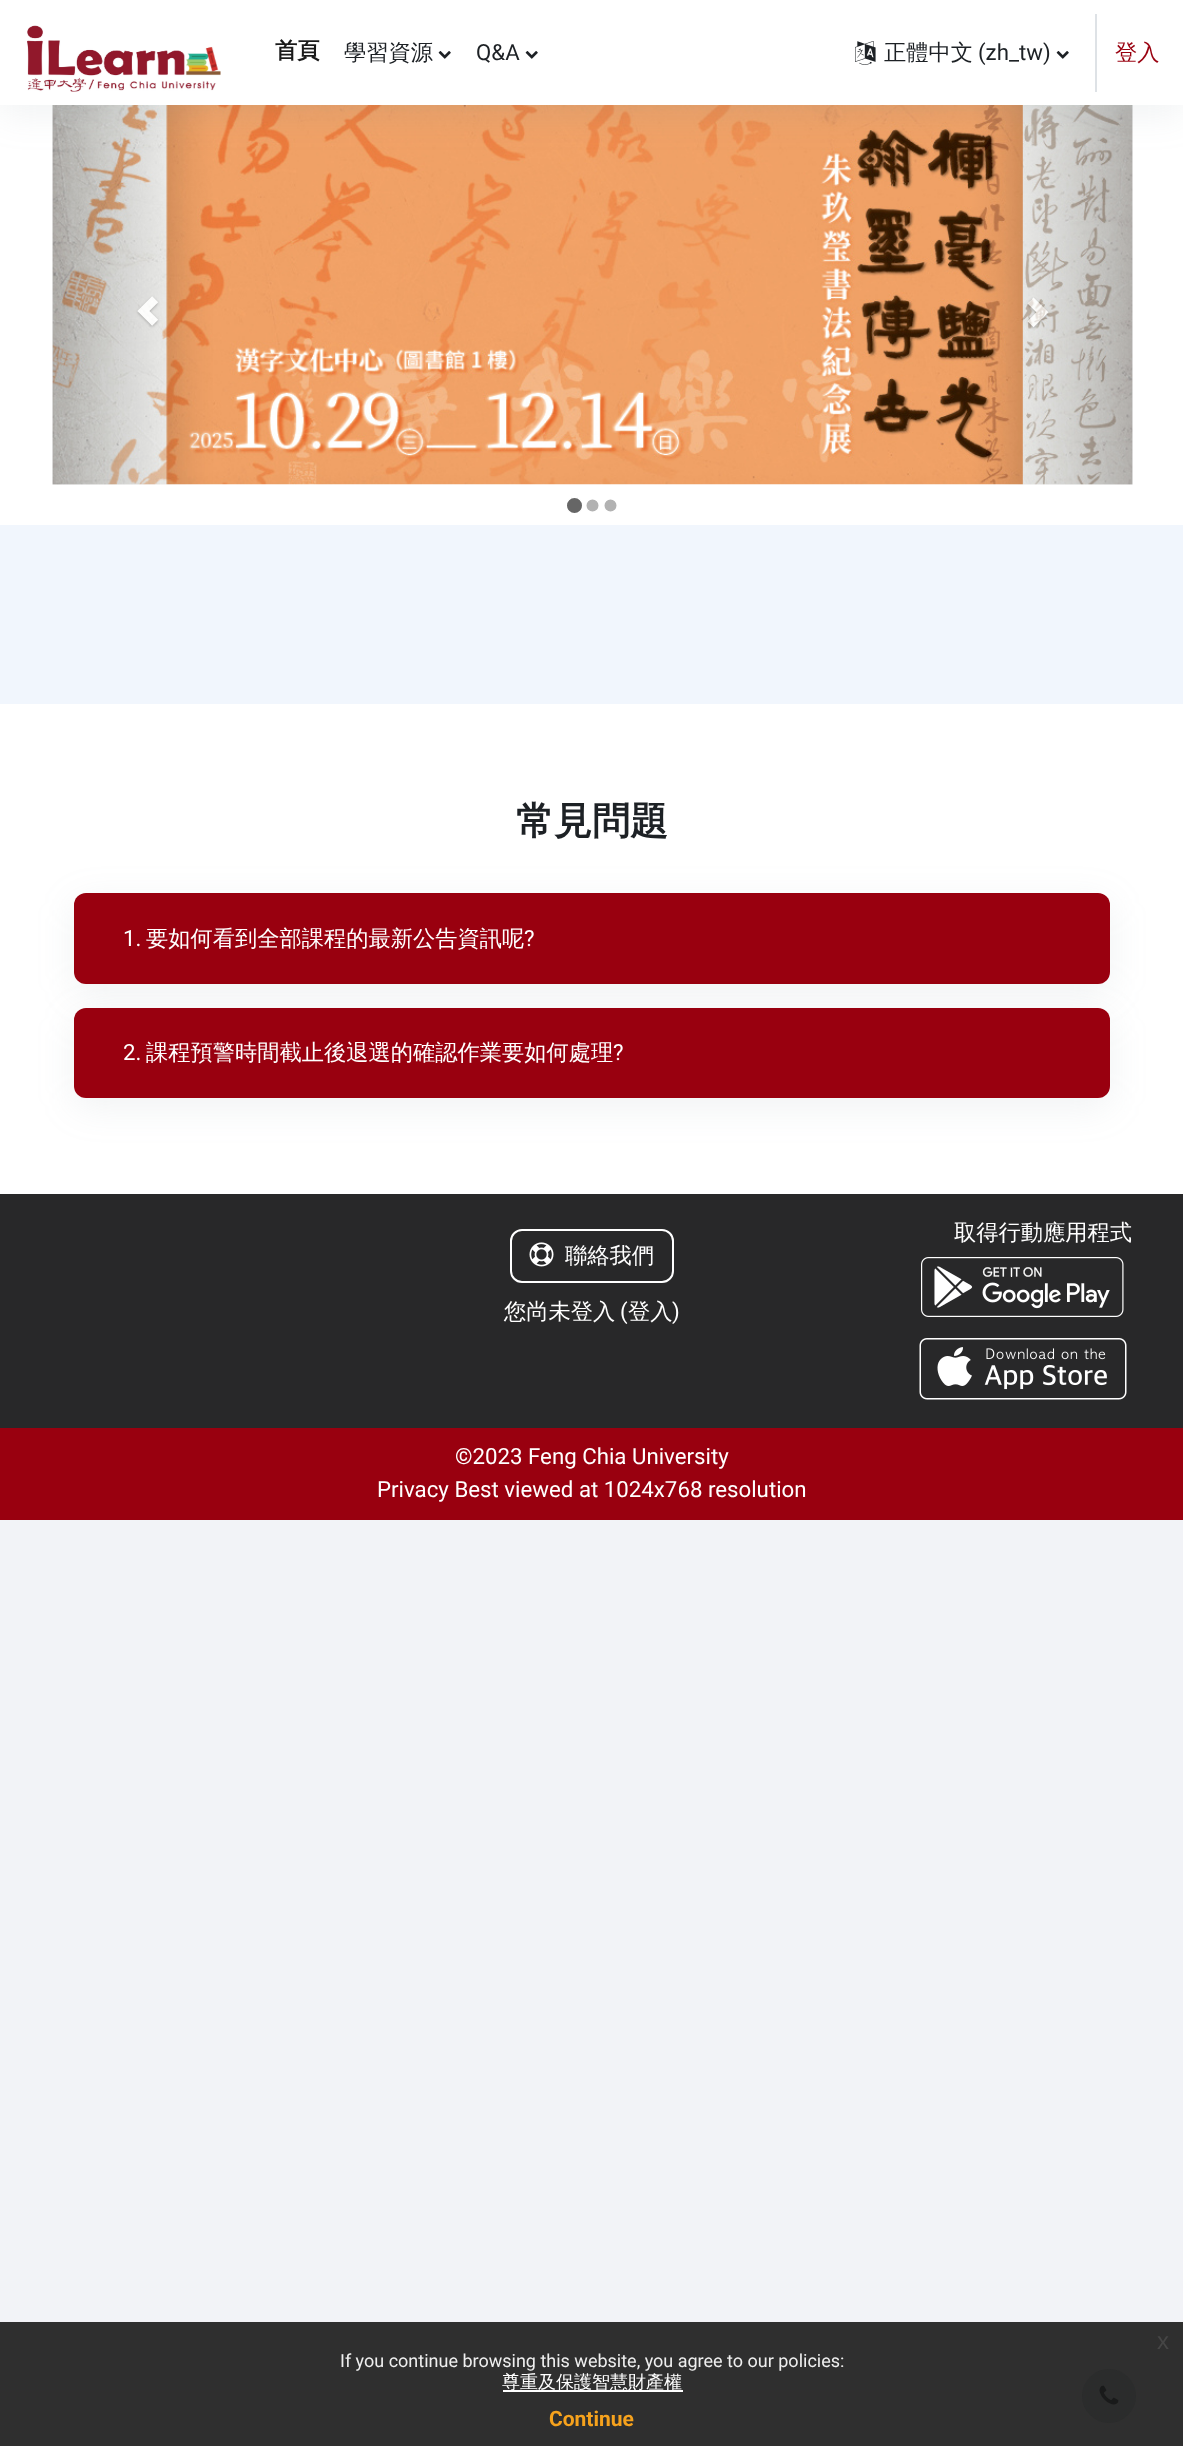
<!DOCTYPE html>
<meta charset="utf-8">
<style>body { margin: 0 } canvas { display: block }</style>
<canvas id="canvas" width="1183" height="2446"></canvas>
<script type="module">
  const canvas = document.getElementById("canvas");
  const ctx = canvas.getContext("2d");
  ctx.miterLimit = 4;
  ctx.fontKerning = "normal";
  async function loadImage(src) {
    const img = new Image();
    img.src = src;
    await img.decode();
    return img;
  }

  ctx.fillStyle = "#f2f3f7";
  ctx.fillRect(0, 0, 1183, 2446);
  ctx.fillStyle = "#2f2f2f";
  ctx.fillRect(0, 2322, 1183, 124);
  ctx.fillStyle = "#ffffff";
  ctx.fillRect(0, 105, 1183, 1089);
  ctx.drawImage(await loadImage("img4.png"), 52, 105, 1081, 408);
  ctx.fillStyle = "rgba(140, 152, 164, 0.13)";
  ctx.filter = "blur(18px)";
  ctx.beginPath();
  ctx.rect(0, 9, 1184, 105);
  ctx.fill();
  ctx.filter = "none";
  ctx.fillStyle = "#ffffff";
  ctx.fillRect(0, 0, 1183, 105);
  ctx.drawImage(await loadImage("img1.png"), 27, 25, 194, 67);
  ctx.font = "bold 22.25px WenQuanYi Zen Hei";
  ctx.fillStyle = "#1a1a1a";
  ctx.fillText("首頁", 275, 58);
  ctx.font = "500 22.25px WenQuanYi Zen Hei";
  ctx.fillStyle = "#1d2125";
  ctx.fillText("學習資源", 344, 60);
  ctx.drawImage(await loadImage("img2.png"), 438, 51, 13, 8);
  ctx.font = "22.25px Roboto";
  ctx.fillText("Q&A", 476, 60);
  ctx.drawImage(await loadImage("img2.png"), 525, 51, 13, 8);
  ctx.drawImage(await loadImage("img3.png"), 855, 41, 21, 24);
  ctx.font = "500 22.25px WenQuanYi Zen Hei";
  ctx.fillText("正體中文", 884, 60);
  ctx.font = "22.25px Roboto";
  ctx.fillText("(zh_tw)", 978, 60);
  ctx.drawImage(await loadImage("img2.png"), 1056, 51, 13, 8);
  ctx.fillStyle = "#dee2e6";
  ctx.fillRect(1095, 14, 2, 78);
  ctx.font = "500 22.25px WenQuanYi Zen Hei";
  ctx.fillStyle = "#99000f";
  ctx.fillText("登入", 1115, 60);
  ctx.fillStyle = "#f1f6fd";
  ctx.fillRect(0, 525, 1183, 179);
  ctx.font = "bold 38px WenQuanYi Zen Hei";
  ctx.fillStyle = "#1d2125";
  ctx.fillText("常見問題", 516, 834);
  ctx.fillStyle = "rgba(140, 152, 164, 0.13)";
  ctx.filter = "blur(18px)";
  ctx.beginPath();
  ctx.roundRect(74, 902, 1036, 91, 12);
  ctx.fill();
  ctx.filter = "none";
  ctx.fillStyle = "#99000f";
  ctx.beginPath();
  ctx.roundRect(74, 893, 1036, 91, 12);
  ctx.fill();
  ctx.font = "22.25px Roboto";
  ctx.fillStyle = "#ffffff";
  ctx.fillText("1.", 123, 946);
  ctx.font = "500 22.25px WenQuanYi Zen Hei";
  ctx.fillText("要如何看到全部課程的最新公告資訊呢", 146, 946);
  ctx.font = "22.25px Roboto";
  ctx.fillText("?", 524, 946);
  ctx.fillStyle = "rgba(140, 152, 164, 0.13)";
  ctx.filter = "blur(18px)";
  ctx.beginPath();
  ctx.roundRect(74, 1017, 1036, 90, 12);
  ctx.fill();
  ctx.filter = "none";
  ctx.fillStyle = "#99000f";
  ctx.beginPath();
  ctx.roundRect(74, 1008, 1036, 90, 12);
  ctx.fill();
  ctx.fillStyle = "#ffffff";
  ctx.fillText("2.", 123, 1060);
  ctx.font = "500 22.25px WenQuanYi Zen Hei";
  ctx.fillText("課程預警時間截止後退選的確認作業要如何處理", 146, 1060);
  ctx.font = "22.25px Roboto";
  ctx.fillText("?", 613, 1060);
  ctx.fillStyle = "#282829";
  ctx.fillRect(0, 1194, 1183, 234);
  ctx.font = "500 22.25px WenQuanYi Zen Hei";
  ctx.fillStyle = "#ffffff";
  ctx.fillText("取得行動應用程式", 954, 1240);
  ctx.drawImage(await loadImage("img5.png"), 921, 1257, 203, 60);
  ctx.drawImage(await loadImage("img6.png"), 919, 1338, 208, 62);
  ctx.beginPath();
  ctx.roundRect(511, 1230, 162, 52, 11);
  ctx.strokeStyle = "#ffffff";
  ctx.lineWidth = 2;
  ctx.stroke();
  ctx.drawImage(await loadImage("img7.png"), 529, 1242, 25, 25);
  ctx.fillText("聯絡我們", 565, 1263);
  ctx.fillText("您尚未登入", 504, 1319);
  ctx.font = "22.25px Roboto";
  ctx.fillText("(", 620, 1319);
  ctx.font = "500 22.25px WenQuanYi Zen Hei";
  ctx.fillText("登入", 628, 1319);
  ctx.font = "22.25px Roboto";
  ctx.fillText(")", 672, 1319);
  ctx.fillStyle = "#99000f";
  ctx.fillRect(0, 1428, 1183, 92);
  ctx.fillStyle = "#ffffff";
  ctx.fillText("©2023 Feng Chia University", 455, 1464);
  ctx.fillText("Privacy Best viewed at 1024x768 resolution", 377, 1497);
  ctx.fillStyle = "#2b2c2c";
  ctx.beginPath();
  ctx.arc(1109, 2396, 27, 0, Math.PI * 2);
  ctx.fill();
  ctx.drawImage(await loadImage("img8.png"), 1099, 2385, 20, 20);
  ctx.font = "24px Liberation Sans";
  ctx.fillStyle = "#464646";
  ctx.fillText("x", 1157, 2349);
  ctx.font = "18px Roboto";
  ctx.fillStyle = "#efefef";
  ctx.fillText("If you continue browsing this website, you agree to our policies:", 340, 2367);
  ctx.fillStyle = "#ffffff";
  ctx.fillRect(503, 2390, 180, 2);
  ctx.font = "500 18px WenQuanYi Zen Hei";
  ctx.fillText("尊重及保護智慧財產權", 502, 2388);
  ctx.font = "bold 21px Roboto";
  ctx.fillStyle = "#f6a21d";
  ctx.fillText("Continue", 549, 2426);
</script>
